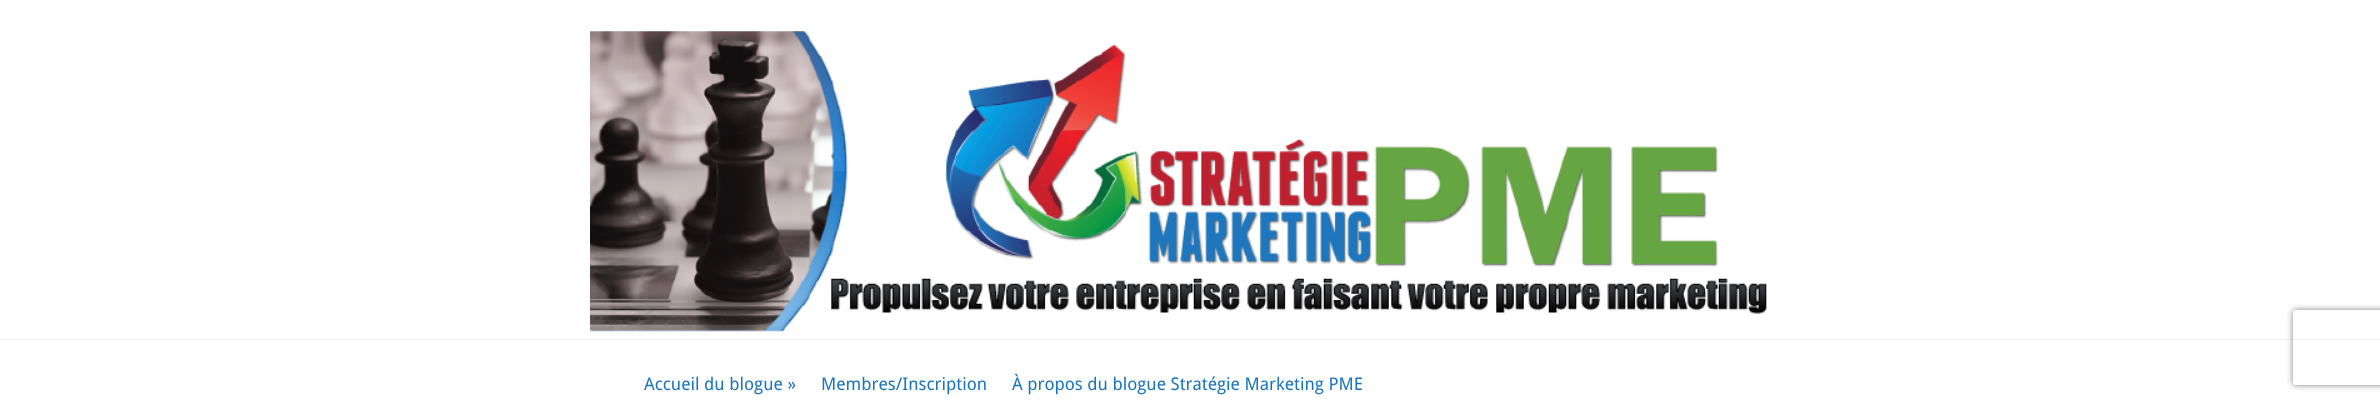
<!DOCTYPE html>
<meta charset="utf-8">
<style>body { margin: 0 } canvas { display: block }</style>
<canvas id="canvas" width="2380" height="402"></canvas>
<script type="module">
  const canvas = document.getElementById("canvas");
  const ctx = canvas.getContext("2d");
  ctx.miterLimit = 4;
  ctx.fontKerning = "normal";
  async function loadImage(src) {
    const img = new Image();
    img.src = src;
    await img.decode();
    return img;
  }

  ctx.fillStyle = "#ffffff";
  ctx.fillRect(0, 0, 2380, 402);
  ctx.drawImage(await loadImage("img1.png"), 590, 31, 1177, 301);
  ctx.fillStyle = "#f1f1f1";
  ctx.fillRect(0, 339, 2380, 1);
  ctx.font = "17.5px Droid Sans";
  ctx.fillStyle = "#1c75bc";
  ctx.fillText("Accueil du blogue »", 644, 390);
  ctx.fillText("Membres/Inscription", 821, 390);
  ctx.fillText("À propos du blogue Stratégie Marketing PME", 1012, 390);
  ctx.save();
  ctx.beginPath();
  ctx.moveTo(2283, 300);
  ctx.lineTo(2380, 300);
  ctx.lineTo(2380, 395);
  ctx.lineTo(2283, 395);
  ctx.closePath();
  ctx.moveTo(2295.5, 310);
  ctx.lineTo(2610.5, 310);
  ctx.bezierCurveTo(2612, 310, 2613, 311, 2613, 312.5);
  ctx.lineTo(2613, 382.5);
  ctx.bezierCurveTo(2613, 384, 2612, 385, 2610.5, 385);
  ctx.lineTo(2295.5, 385);
  ctx.bezierCurveTo(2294, 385, 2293, 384, 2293, 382.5);
  ctx.lineTo(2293, 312.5);
  ctx.bezierCurveTo(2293, 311, 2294, 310, 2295.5, 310);
  ctx.closePath();
  ctx.clip("evenodd");
  ctx.fillStyle = "#808080";
  ctx.filter = "blur(3px)";
  ctx.beginPath();
  ctx.roundRect(2293, 310, 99, 75, 2.5);
  ctx.fill();
  ctx.filter = "none";
  ctx.restore();
</script>
